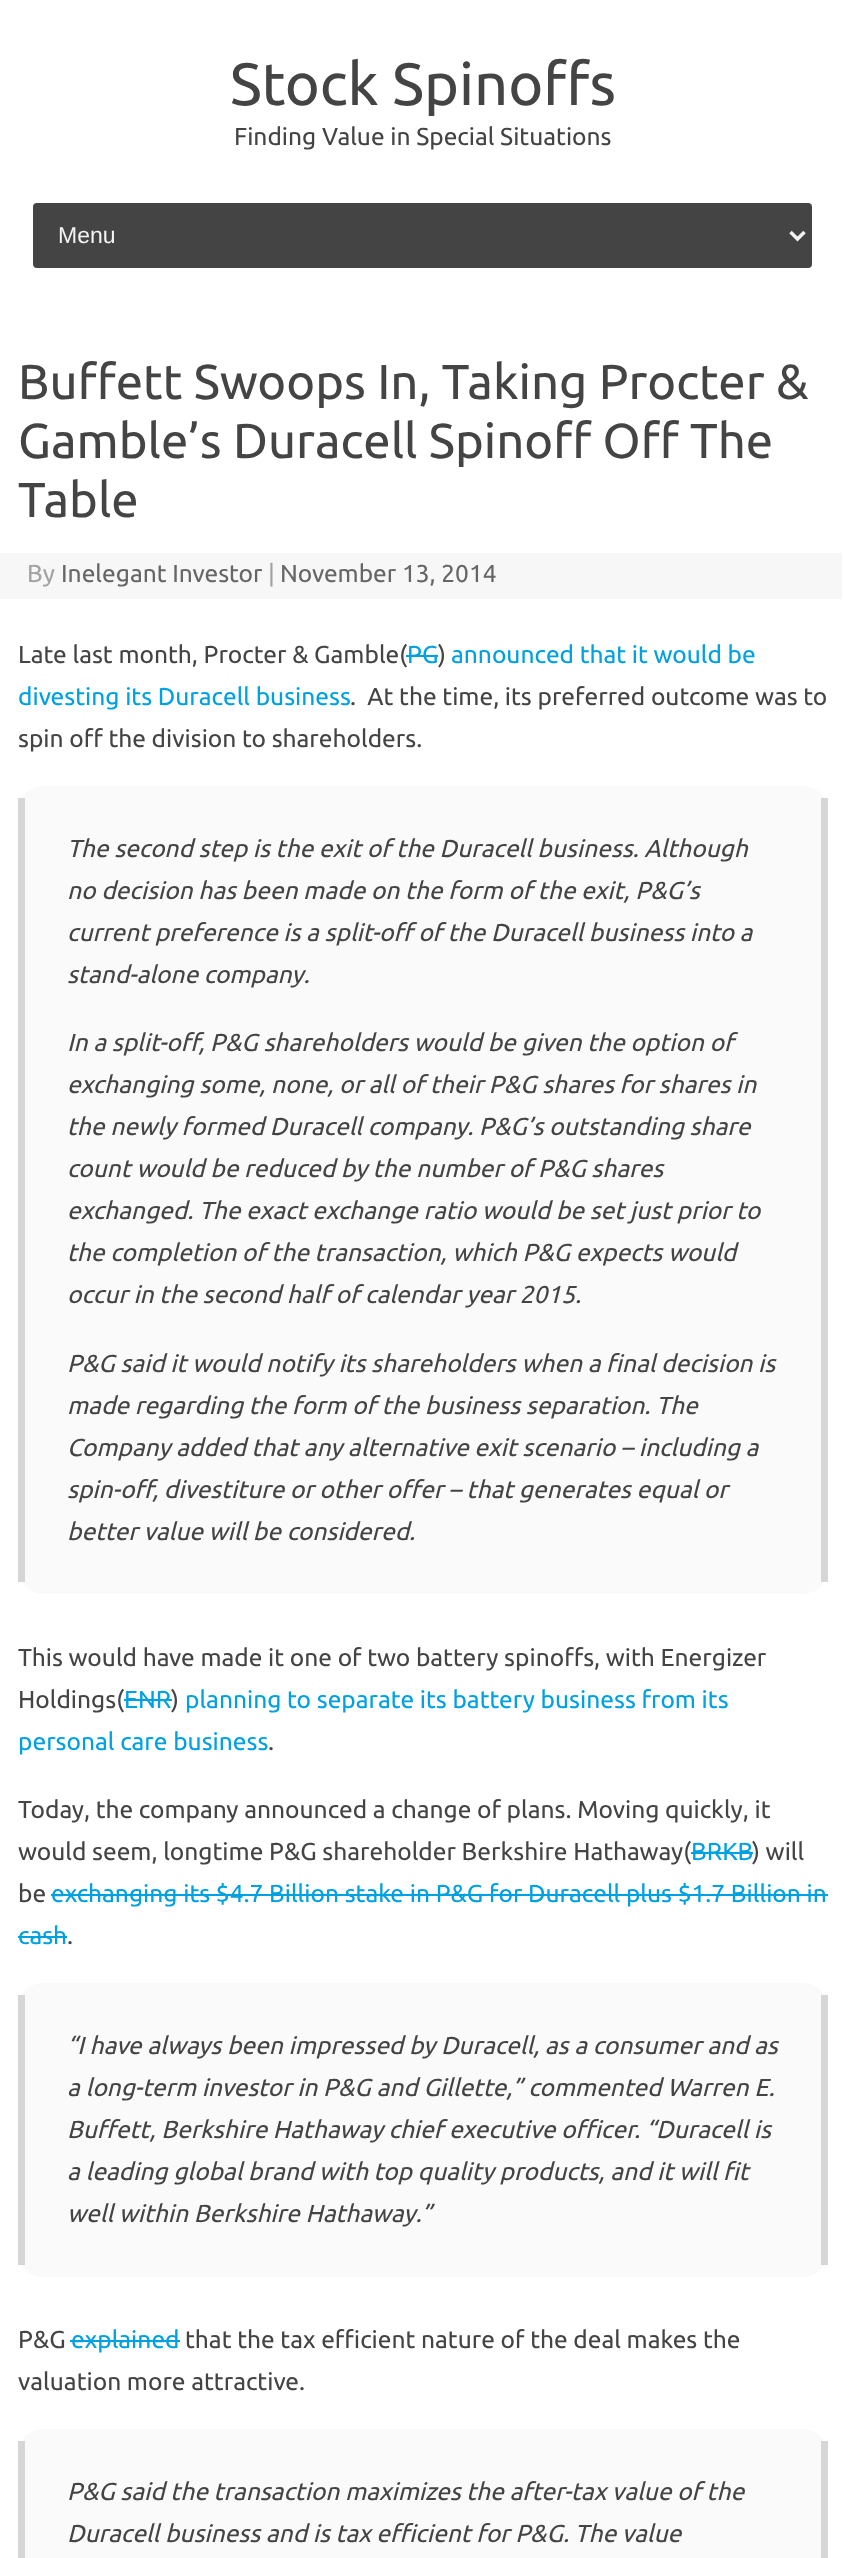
<!DOCTYPE html>
<meta charset="utf-8">
<style>body { margin: 0 } canvas { display: block }</style>
<canvas id="canvas" width="844" height="2558"></canvas>
<script type="module">
  const canvas = document.getElementById("canvas");
  const ctx = canvas.getContext("2d");
  ctx.miterLimit = 4;
  ctx.fontKerning = "normal";

  ctx.fillStyle = "#ffffff";
  ctx.fillRect(0, 0, 844, 2558);
  ctx.font = "59.5px Ubuntu";
  ctx.fillStyle = "#444444";
  ctx.fillText("Stock Spinoffs", 230, 105);
  ctx.font = "24.5px Ubuntu";
  ctx.fillText("Finding Value in Special Situations", 234, 145);
  ctx.beginPath();
  ctx.roundRect(33, 203, 779, 65, 4);
  ctx.fill();
  ctx.beginPath();
  ctx.moveTo(790.5, 232);
  ctx.lineTo(797.5, 239);
  ctx.lineTo(804.5, 232);
  ctx.strokeStyle = "#f3f3f3";
  ctx.lineWidth = 3.5;
  ctx.stroke();
  ctx.font = "23px Liberation Sans";
  ctx.fillStyle = "#f3f3f3";
  ctx.fillText("Menu", 58, 243);
  ctx.font = "49px Ubuntu";
  ctx.fillStyle = "#444444";
  ctx.fillText("Buffett Swoops In, Taking Procter &", 18, 399);
  ctx.fillText("Gamble’s Duracell Spinoff Off The", 18, 458);
  ctx.fillText("Table", 18, 517);
  ctx.fillStyle = "#f7f7f7";
  ctx.fillRect(0, 553, 842, 46);
  ctx.font = "24.5px Ubuntu";
  ctx.fillStyle = "#a2a2a2";
  ctx.fillText("By", 27, 582);
  ctx.fillStyle = "#666666";
  ctx.fillText("Inelegant Investor", 61, 582);
  ctx.fillStyle = "#a2a2a2";
  ctx.fillText("|", 268, 582);
  ctx.fillStyle = "#666666";
  ctx.fillText("November 13, 2014", 280, 582);
  ctx.fillStyle = "#444444";
  ctx.fillText("Late last month, Procter & Gamble(", 18, 663);
  ctx.fillStyle = "#00a1e0";
  ctx.fillText("PG", 407, 663);
  ctx.fillRect(406, 655, 32, 2);
  ctx.fillStyle = "#444444";
  ctx.fillText(")", 438, 663);
  ctx.fillStyle = "#00a1e0";
  ctx.fillText("announced that it would be", 451, 663);
  ctx.fillText("divesting its Duracell business", 18, 705);
  ctx.fillStyle = "#444444";
  ctx.fillText(".  At the time, its preferred outcome was to", 350, 705);
  ctx.fillText("spin off the division to shareholders.", 18, 747);
  ctx.fillStyle = "#fafafa";
  ctx.beginPath();
  ctx.roundRect(18, 786, 810, 808, 25);
  ctx.fill();
  ctx.fillStyle = "#d6d6d6";
  ctx.fillRect(821, 798, 7, 784);
  ctx.fillRect(18, 798, 7, 784);
  ctx.font = "italic 24.5px Ubuntu";
  ctx.fillStyle = "#444444";
  ctx.fillText("The second step is the exit of the Duracell business. Although", 67, 857);
  ctx.fillText("no decision has been made on the form of the exit, P&G’s", 67, 899);
  ctx.fillText("current preference is a split-off of the Duracell business into a", 67, 941);
  ctx.fillText("stand-alone company.", 67, 983);
  ctx.fillText("In a split-off, P&G shareholders would be given the option of", 67, 1051);
  ctx.fillText("exchanging some, none, or all of their P&G shares for shares in", 67, 1093);
  ctx.fillText("the newly formed Duracell company. P&G’s outstanding share", 67, 1135);
  ctx.fillText("count would be reduced by the number of P&G shares", 67, 1177);
  ctx.fillText("exchanged. The exact exchange ratio would be set just prior to", 67, 1219);
  ctx.fillText("the completion of the transaction, which P&G expects would", 67, 1261);
  ctx.fillText("occur in the second half of calendar year 2015.", 67, 1303);
  ctx.fillText("P&G said it would notify its shareholders when a final decision is", 67, 1372);
  ctx.fillText("made regarding the form of the business separation. The", 67, 1414);
  ctx.fillText("Company added that any alternative exit scenario – including a", 67, 1456);
  ctx.fillText("spin-off, divestiture or other offer – that generates equal or", 67, 1498);
  ctx.fillText("better value will be considered.", 67, 1540);
  ctx.font = "24.5px Ubuntu";
  ctx.fillText("This would have made it one of two battery spinoffs, with Energizer", 18, 1666);
  ctx.fillText("Holdings(", 18, 1708);
  ctx.fillStyle = "#00a1e0";
  ctx.fillText("ENR", 124, 1708);
  ctx.fillRect(124, 1699, 48, 2);
  ctx.fillStyle = "#444444";
  ctx.fillText(")", 171, 1708);
  ctx.fillStyle = "#00a1e0";
  ctx.fillText("planning to separate its battery business from its", 185, 1708);
  ctx.fillText("personal care business", 18, 1750);
  ctx.fillStyle = "#444444";
  ctx.fillText(".", 268, 1750);
  ctx.fillText("Today, the company announced a change of plans. Moving quickly, it", 18, 1818);
  ctx.fillText("would seem, longtime P&G shareholder Berkshire Hathaway(", 18, 1860);
  ctx.fillStyle = "#00a1e0";
  ctx.fillText("BRKB", 691, 1860);
  ctx.fillRect(691, 1852, 62, 2);
  ctx.fillStyle = "#444444";
  ctx.fillText(") will", 752, 1860);
  ctx.fillText("be", 18, 1902);
  ctx.fillStyle = "#00a1e0";
  ctx.fillText("exchanging its $4.7 Billion stake in P&G for Duracell plus $1.7 Billion in", 51, 1902);
  ctx.fillRect(51, 1894, 777, 2);
  ctx.fillText("cash", 18, 1944);
  ctx.fillRect(18, 1936, 49, 2);
  ctx.fillStyle = "#444444";
  ctx.fillText(".", 67, 1944);
  ctx.fillStyle = "#fafafa";
  ctx.beginPath();
  ctx.roundRect(18, 1983, 810, 294, 25);
  ctx.fill();
  ctx.fillStyle = "#d6d6d6";
  ctx.fillRect(821, 1995, 7, 270);
  ctx.fillRect(18, 1995, 7, 270);
  ctx.font = "italic 24.5px Ubuntu";
  ctx.fillStyle = "#444444";
  ctx.fillText("“I have always been impressed by Duracell, as a consumer and as", 67, 2054);
  ctx.fillText("a long-term investor in P&G and Gillette,” commented Warren E.", 67, 2096);
  ctx.fillText("Buffett, Berkshire Hathaway chief executive officer. “Duracell is", 67, 2138);
  ctx.fillText("a leading global brand with top quality products, and it will fit", 67, 2180);
  ctx.fillText("well within Berkshire Hathaway.”", 67, 2222);
  ctx.font = "24.5px Ubuntu";
  ctx.fillText("P&G", 18, 2348);
  ctx.fillStyle = "#00a1e0";
  ctx.fillText("explained", 71, 2348);
  ctx.fillRect(70, 2340, 110, 2);
  ctx.fillStyle = "#444444";
  ctx.fillText("that the tax efficient nature of the deal makes the", 185, 2348);
  ctx.fillText("valuation more attractive.", 18, 2390);
  ctx.fillStyle = "#fafafa";
  ctx.beginPath();
  ctx.roundRect(18, 2429, 810, 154, 25);
  ctx.fill();
  ctx.fillStyle = "#d6d6d6";
  ctx.fillRect(821, 2441, 7, 117);
  ctx.fillRect(18, 2441, 7, 117);
  ctx.font = "italic 24.5px Ubuntu";
  ctx.fillStyle = "#444444";
  ctx.fillText("P&G said the transaction maximizes the after-tax value of the", 67, 2500);
  ctx.fillText("Duracell business and is tax efficient for P&G. The value", 67, 2542);
</script>
